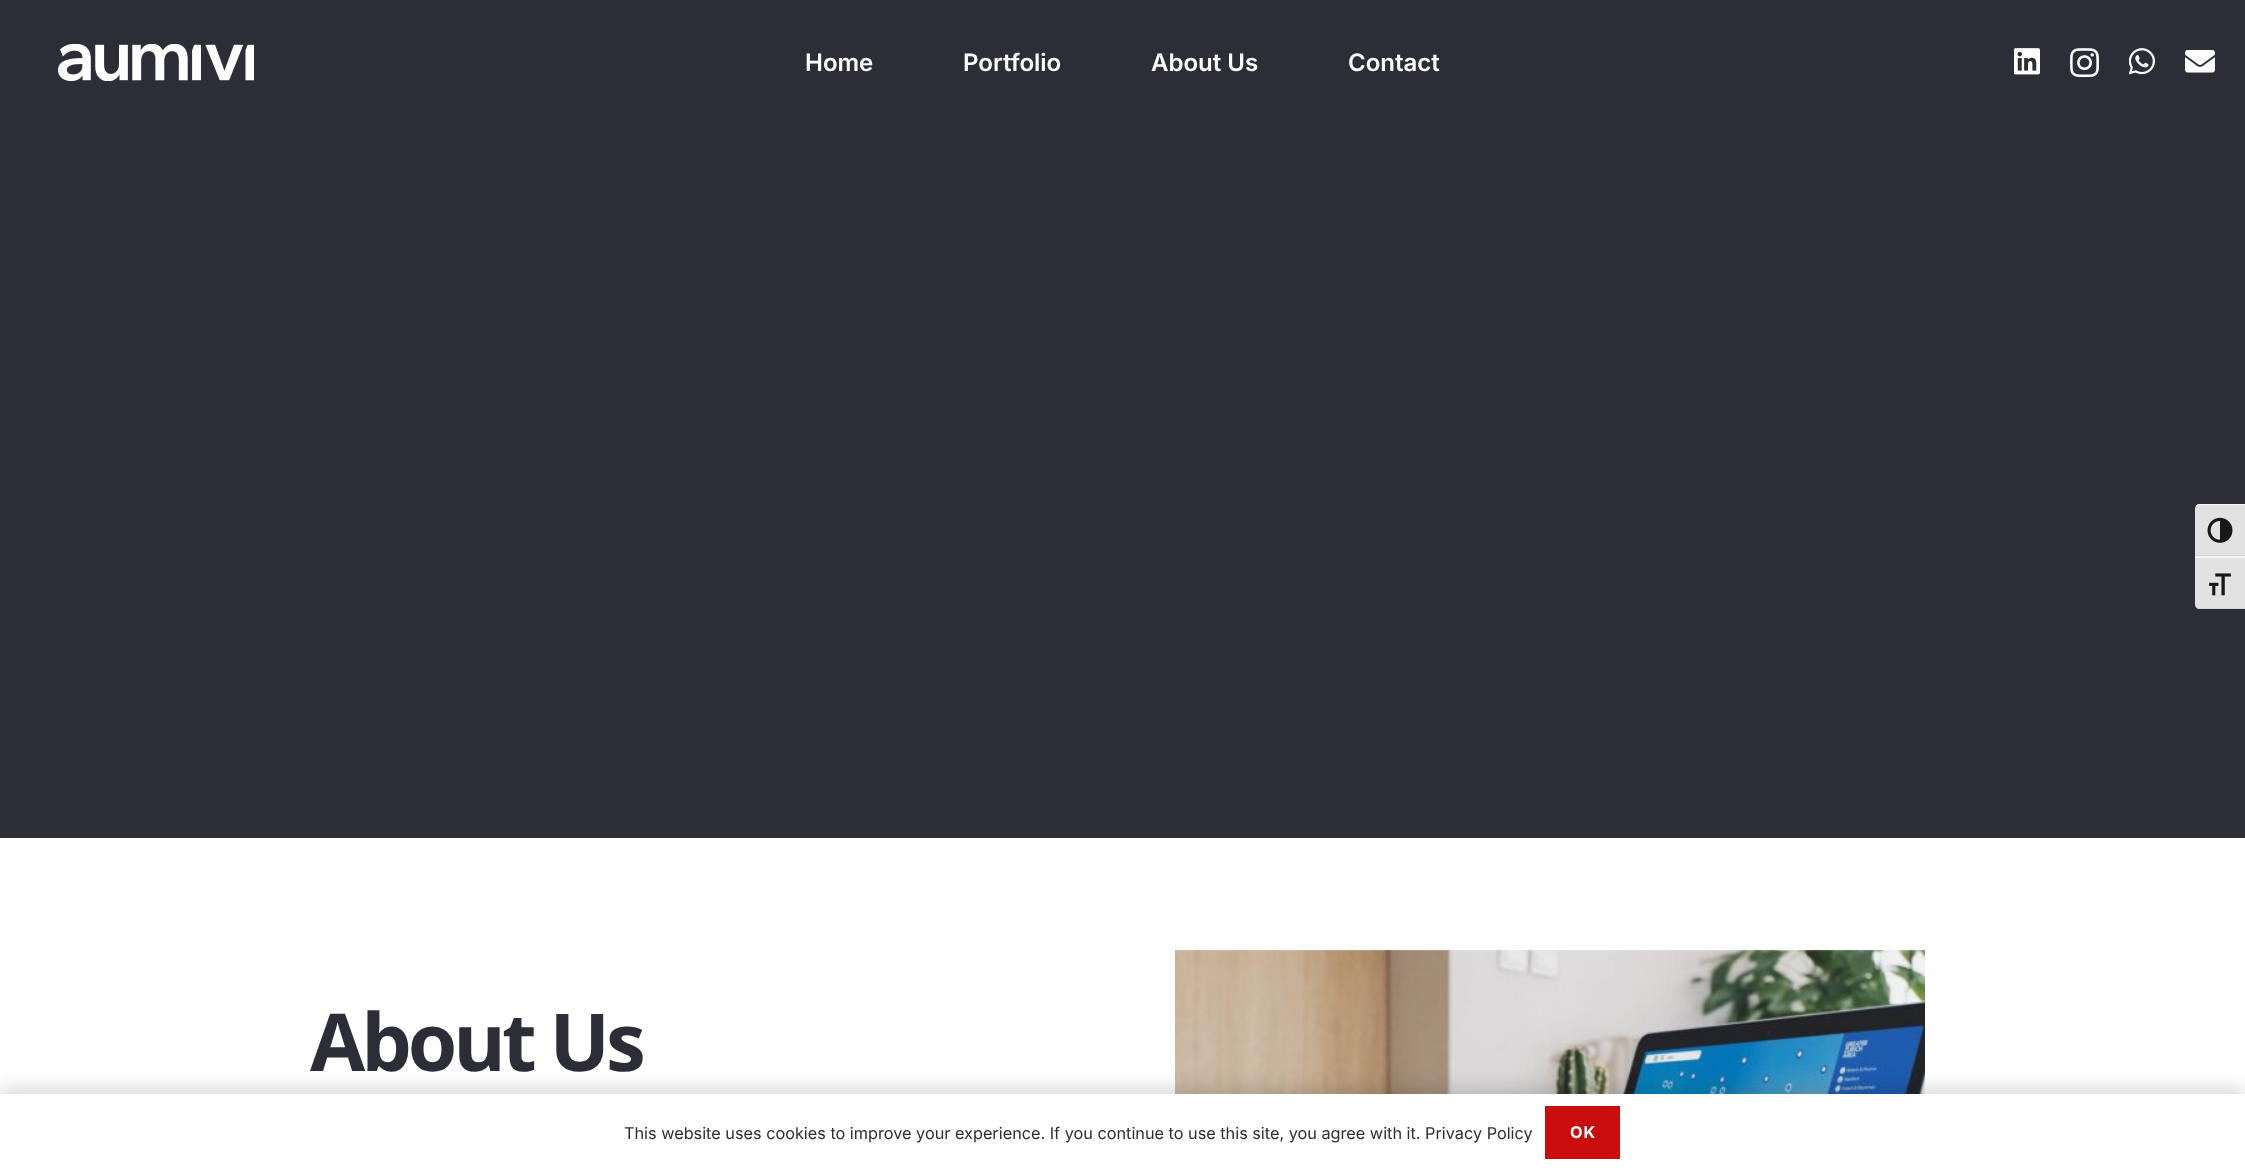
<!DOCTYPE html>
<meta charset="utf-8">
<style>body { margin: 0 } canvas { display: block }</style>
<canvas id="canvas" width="2245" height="1171"></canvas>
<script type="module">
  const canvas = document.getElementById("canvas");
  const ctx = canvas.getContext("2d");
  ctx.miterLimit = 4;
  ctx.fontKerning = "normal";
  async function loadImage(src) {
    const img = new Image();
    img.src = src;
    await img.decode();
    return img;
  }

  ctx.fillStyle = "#ffffff";
  ctx.fillRect(0, 0, 2245, 1171);
  ctx.fillStyle = "#2c2d36";
  ctx.fillRect(0, 0, 2245, 838);
  ctx.drawImage(await loadImage("img1.png"), 58, 44, 196, 37);
  ctx.font = "600 24px Inter";
  ctx.fillStyle = "#ffffff";
  ctx.fillText("Home", 805, 71);
  ctx.fillText("Portfolio", 963, 71);
  ctx.fillText("About Us", 1151, 71);
  ctx.fillText("Contact", 1348, 71);
  ctx.drawImage(await loadImage("img2.png"), 2014, 48, 26, 27);
  ctx.drawImage(await loadImage("img3.png"), 2070, 48, 29, 30);
  ctx.drawImage(await loadImage("img4.png"), 2129, 48, 26, 27);
  ctx.drawImage(await loadImage("img5.png"), 2185, 50, 30, 23);
  ctx.letterSpacing = "-4px";
  ctx.font = "bold 80px Open Sans";
  ctx.fillStyle = "#2c2d36";
  ctx.fillText("About Us", 310, 1071);
  ctx.drawImage(await loadImage("img6.png"), 1175, 949, 750, 145);
  ctx.fillStyle = "#e2e2e2";
  ctx.beginPath();
  ctx.roundRect(2195, 504, 50, 52, [5, 0, 0, 0]);
  ctx.fill();
  ctx.fillStyle = "#f5f5f5";
  ctx.beginPath();
  ctx.moveTo(2200, 504);
  ctx.lineTo(2245, 504);
  ctx.lineTo(2245, 505);
  ctx.lineTo(2200, 505);
  ctx.bezierCurveTo(2197, 505, 2195, 507, 2195, 509);
  ctx.bezierCurveTo(2195, 506, 2197, 504, 2200, 504);
  ctx.closePath();
  ctx.fill();
  ctx.fillStyle = "#d2d2d2";
  ctx.fillRect(2195, 555, 50, 1);
  ctx.drawImage(await loadImage("img7.png"), 2207, 517, 26, 26);
  ctx.fillStyle = "#e2e2e2";
  ctx.beginPath();
  ctx.roundRect(2195, 556, 50, 53, [0, 0, 0, 5]);
  ctx.fill();
  ctx.fillStyle = "#f5f5f5";
  ctx.fillRect(2195, 556, 50, 2);
  ctx.fillStyle = "#d2d2d2";
  ctx.beginPath();
  ctx.moveTo(2245, 609);
  ctx.lineTo(2198, 609);
  ctx.bezierCurveTo(2196, 608, 2195, 606, 2195, 604);
  ctx.bezierCurveTo(2195, 606, 2197, 608, 2200, 608);
  ctx.lineTo(2245, 608);
  ctx.closePath();
  ctx.fill();
  ctx.drawImage(await loadImage("img8.png"), 2209, 573, 22, 23);
  ctx.fillStyle = "rgba(0, 0, 0, 0.15)";
  ctx.filter = "blur(9.5px)";
  ctx.beginPath();
  ctx.rect(0, 1088, 2245, 77);
  ctx.fill();
  ctx.filter = "none";
  ctx.fillStyle = "#ffffff";
  ctx.fillRect(0, 1094, 2245, 77);
  ctx.letterSpacing = "0px";
  ctx.font = "16.25px Inter";
  ctx.fillStyle = "#2c2d36";
  ctx.fillText("This website uses cookies to improve your experience. If you continue to use this site, you agree with it. Privacy Policy", 624, 1139);
  ctx.fillStyle = "#c90c0e";
  ctx.fillRect(1545, 1106, 75, 53);
  ctx.letterSpacing = "1px";
  ctx.font = "bold 16.25px Inter";
  ctx.fillStyle = "#ffffff";
  ctx.fillText("OK", 1570, 1138);
</script>
